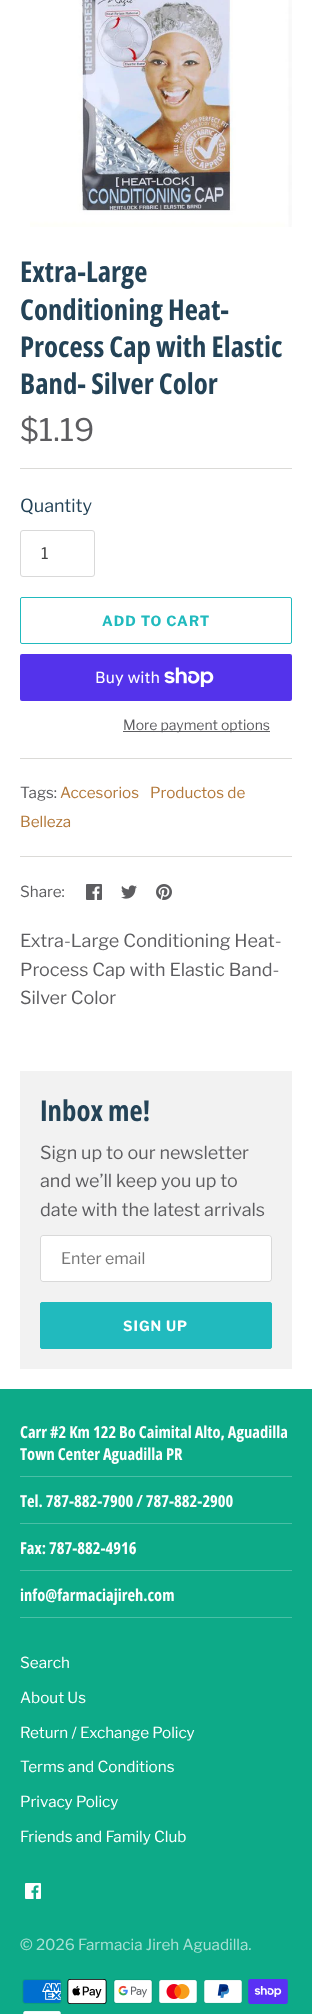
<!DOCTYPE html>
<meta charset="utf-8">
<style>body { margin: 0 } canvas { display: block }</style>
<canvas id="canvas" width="312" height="2014"></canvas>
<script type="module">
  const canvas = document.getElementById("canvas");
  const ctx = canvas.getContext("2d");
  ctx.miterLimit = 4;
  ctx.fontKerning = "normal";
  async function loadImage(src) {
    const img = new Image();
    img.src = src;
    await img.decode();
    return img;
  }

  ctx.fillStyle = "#ffffff";
  ctx.fillRect(0, 0, 312, 2014);
  ctx.drawImage(await loadImage("img1.png"), 30, 0, 262, 227);
  ctx.font = "bold 28.75px Open Sans Condensed";
  ctx.fillStyle = "#244357";
  ctx.fillText("Extra-Large", 20, 282);
  ctx.fillText("Conditioning Heat-", 20, 320);
  ctx.fillText("Process Cap with Elastic", 20, 357);
  ctx.fillText("Band- Silver Color", 20, 394);
  ctx.font = "31px Libre Franklin";
  ctx.fillStyle = "#5d5d60";
  ctx.fillText("$1.19", 20, 441);
  ctx.fillStyle = "#dbdad7";
  ctx.fillRect(20, 468, 272, 1);
  ctx.font = "18px Libre Franklin";
  ctx.fillStyle = "#244357";
  ctx.fillText("Quantity", 20, 512);
  ctx.beginPath();
  ctx.roundRect(20.5, 530.5, 74, 46, 2.5);
  ctx.strokeStyle = "#d9d9d9";
  ctx.stroke();
  ctx.font = "16px Libre Franklin";
  ctx.fillStyle = "#444444";
  ctx.fillText("1", 41, 559);
  ctx.beginPath();
  ctx.roundRect(20.5, 597.5, 271, 46, 1.5);
  ctx.strokeStyle = "#21babe";
  ctx.stroke();
  ctx.letterSpacing = "1px";
  ctx.font = "bold 14px Libre Franklin";
  ctx.fillStyle = "#21babe";
  ctx.fillText("ADD TO CART", 102, 626);
  ctx.fillStyle = "#5433eb";
  ctx.beginPath();
  ctx.roundRect(20, 654, 272, 47, 2);
  ctx.fill();
  ctx.letterSpacing = "0px";
  ctx.font = "16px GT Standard";
  ctx.fillStyle = "#ffffff";
  ctx.fillText("Buy with", 95, 683);
  ctx.drawImage(await loadImage("img2.png"), 164, 667, 50, 20);
  ctx.fillStyle = "#5d5d60";
  ctx.fillRect(123, 731, 147, 1);
  ctx.font = "14px Libre Franklin";
  ctx.fillText("More payment options", 123, 730);
  ctx.fillStyle = "#dbdad7";
  ctx.fillRect(20, 758, 272, 1);
  ctx.font = "15.25px Libre Franklin";
  ctx.fillStyle = "#5d5d60";
  ctx.fillText("Tags:", 20, 798);
  ctx.fillStyle = "#b3793b";
  ctx.fillText("Accesorios", 60, 798);
  ctx.fillText("Productos de", 150, 798);
  ctx.fillText("Belleza", 20, 827);
  ctx.fillStyle = "#dbdad7";
  ctx.fillRect(20, 856, 272, 1);
  ctx.fillStyle = "#5d5d60";
  ctx.fillText("Share:", 20, 897);
  ctx.drawImage(await loadImage("img3.png"), 86, 884, 16, 16);
  ctx.drawImage(await loadImage("img4.png"), 121, 885, 16, 14);
  ctx.drawImage(await loadImage("img5.png"), 156, 884, 16, 16);
  ctx.font = "18px Libre Franklin";
  ctx.fillText("Extra-Large Conditioning Heat-", 20, 947);
  ctx.fillText("Process Cap with Elastic Band-", 20, 976);
  ctx.fillText("Silver Color", 20, 1004);
  ctx.fillStyle = "#f2f2f2";
  ctx.fillRect(20, 1071, 272, 298);
  ctx.font = "bold 28.75px Open Sans Condensed";
  ctx.fillStyle = "#244357";
  ctx.fillText("Inbox me!", 40, 1121);
  ctx.font = "18px Libre Franklin";
  ctx.fillStyle = "#5d5d60";
  ctx.fillText("Sign up to our newsletter", 40, 1159);
  ctx.fillText("and we’ll keep you up to", 40, 1187);
  ctx.fillText("date with the latest arrivals", 40, 1216);
  ctx.fillStyle = "#ffffff";
  ctx.beginPath();
  ctx.roundRect(40, 1235, 232, 47, 3);
  ctx.fill();
  ctx.beginPath();
  ctx.roundRect(40.5, 1235.5, 231, 46, 2.5);
  ctx.strokeStyle = "rgba(0, 0, 0, 0.15)";
  ctx.stroke();
  ctx.font = "16px Libre Franklin";
  ctx.fillStyle = "#757575";
  ctx.fillText("Enter email", 61, 1264);
  ctx.fillStyle = "#21babe";
  ctx.beginPath();
  ctx.roundRect(40.5, 1302.5, 231, 46, 1.5);
  ctx.fill();
  ctx.strokeStyle = "#21babe";
  ctx.stroke();
  ctx.letterSpacing = "1px";
  ctx.font = "bold 14px Libre Franklin";
  ctx.fillStyle = "#ffffff";
  ctx.fillText("SIGN UP", 123, 1331);
  ctx.fillStyle = "#0daa88";
  ctx.fillRect(0, 1389, 312, 625);
  ctx.fillStyle = "#4abfa6";
  ctx.fillRect(20, 1476, 272, 1);
  ctx.letterSpacing = "0px";
  ctx.font = "bold 16.5px Open Sans Condensed";
  ctx.fillStyle = "#ffffff";
  ctx.fillText("Carr #2 Km 122 Bo Caimital Alto, Aguadilla", 20, 1438);
  ctx.fillText("Town Center Aguadilla PR", 20, 1460);
  ctx.fillStyle = "#4abfa6";
  ctx.fillRect(20, 1523, 272, 1);
  ctx.fillStyle = "#ffffff";
  ctx.fillText("Tel. 787-882-7900 / 787-882-2900", 20, 1507);
  ctx.fillStyle = "#4abfa6";
  ctx.fillRect(20, 1570, 272, 1);
  ctx.fillStyle = "#ffffff";
  ctx.fillText("Fax: 787-882-4916", 20, 1554);
  ctx.fillStyle = "#4abfa6";
  ctx.fillRect(20, 1617, 272, 1);
  ctx.fillStyle = "#ffffff";
  ctx.fillText("info@farmaciajireh.com", 20, 1601);
  ctx.font = "15.25px Libre Franklin";
  ctx.fillText("Search", 20, 1668);
  ctx.fillText("About Us", 20, 1703);
  ctx.fillText("Return / Exchange Policy", 20, 1738);
  ctx.fillText("Terms and Conditions", 20, 1772);
  ctx.fillText("Privacy Policy", 20, 1807);
  ctx.fillText("Friends and Family Club", 20, 1842);
  ctx.drawImage(await loadImage("img6.png"), 25, 1883, 16, 16);
  ctx.fillStyle = "#aae1d5";
  ctx.fillText("© 2026 Farmacia Jireh Aguadilla.", 20, 1950);
  ctx.drawImage(await loadImage("img7.png"), 22, 1979, 40, 25);
  ctx.drawImage(await loadImage("img8.png"), 67, 1979, 40, 25);
  ctx.drawImage(await loadImage("img9.png"), 113, 1979, 40, 25);
  ctx.drawImage(await loadImage("img10.png"), 158, 1979, 40, 25);
  ctx.drawImage(await loadImage("img11.png"), 203, 1979, 40, 25);
  ctx.drawImage(await loadImage("img12.png"), 248, 1979, 40, 25);
  ctx.drawImage(await loadImage("img13.png"), 22, 2010, 40, 4);
</script>
